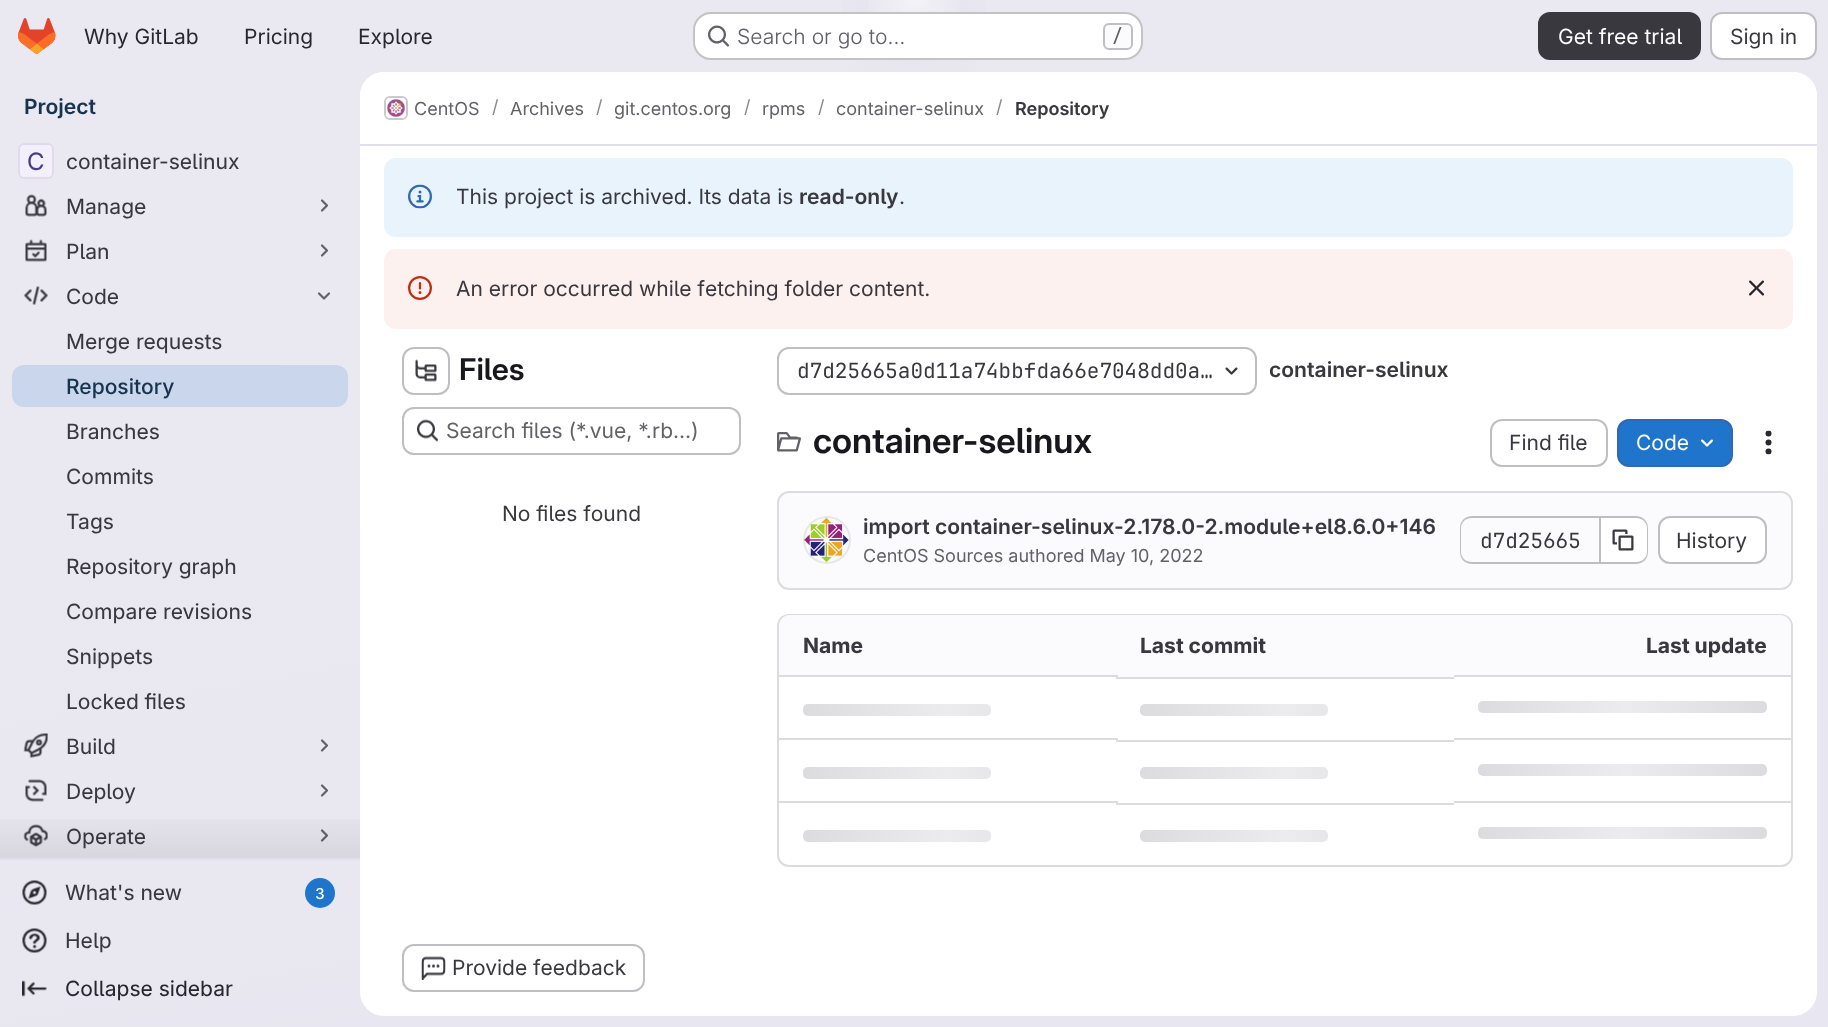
<!DOCTYPE html>
<meta charset="utf-8">
<style>body { margin: 0 } canvas { display: block }</style>
<canvas id="canvas" width="1828" height="1027"></canvas>
<script type="module">
  const canvas = document.getElementById("canvas");
  const ctx = canvas.getContext("2d");
  ctx.miterLimit = 4;
  ctx.fontKerning = "normal";
  async function loadImage(src) {
    const img = new Image();
    img.src = src;
    await img.decode();
    return img;
  }
  let gradient;

  ctx.fillStyle = "#ffffff";
  ctx.fillRect(0, 0, 1828, 1027);
  gradient = ctx.createLinearGradient(1030, 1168, 799, -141);
  gradient.addColorStop(0, "#e8e6f0");
  gradient.addColorStop(0.7, "#eae9f2");
  ctx.fillStyle = gradient;
  ctx.fillRect(0, 0, 1828, 1027);
  gradient = ctx.createRadialGradient(914, 0, 0, 914, 0, 914);
  gradient.addColorStop(0, "#e4e2ed");
  gradient.addColorStop(0.11, "rgba(228, 226, 237, 0)");
  ctx.fillStyle = gradient;
  ctx.beginPath();
  ctx.rect(842, 0, 144, 72);
  ctx.save();
  ctx.clip();
  ctx.scale(1, 1028 / 914);
  ctx.fillRect(0, 0, 1828, 914);
  ctx.restore();
  gradient = ctx.createRadialGradient(914, 0, 0, 914, 0, 914);
  gradient.addColorStop(0, "#e4e2ec");
  gradient.addColorStop(0.08, "rgba(228, 226, 236, 0)");
  ctx.fillStyle = gradient;
  ctx.beginPath();
  ctx.rect(896, 0, 36, 29);
  ctx.save();
  ctx.clip();
  ctx.scale(1, 1028 / 914);
  ctx.fillRect(0, 0, 1828, 914);
  ctx.restore();
  gradient = ctx.createRadialGradient(914, 0, 0, 914, 0, 1375);
  gradient.addColorStop(0, "rgba(255, 255, 255, 0.6)");
  gradient.addColorStop(0.04, "rgba(255, 255, 255, 0)");
  ctx.fillStyle = gradient;
  ctx.fillRect(868, 0, 92, 12);
  ctx.drawImage(await loadImage("img1.png"), 18, 18, 38, 36);
  ctx.font = "21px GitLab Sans";
  ctx.fillStyle = "#28272d";
  ctx.fillText("Why GitLab", 84, 44);
  ctx.fillText("Pricing", 244, 44);
  ctx.fillText("Explore", 358, 44);
  ctx.fillStyle = "#ffffff";
  ctx.beginPath();
  ctx.roundRect(693, 12, 450, 48, 18);
  ctx.fill();
  ctx.beginPath();
  ctx.roundRect(694, 13, 448, 46, 17);
  ctx.strokeStyle = "rgba(5, 5, 6, 0.24)";
  ctx.lineWidth = 2;
  ctx.stroke();
  ctx.drawImage(await loadImage("img2.png"), 708, 25, 21, 22);
  ctx.font = "300 21px GitLab Sans";
  ctx.fillStyle = "#626168";
  ctx.fillText("Search or go to…", 737, 44);
  ctx.fillStyle = "#fbfafd";
  ctx.beginPath();
  ctx.roundRect(1104, 24, 28, 25, 5);
  ctx.fill();
  ctx.strokeStyle = "#bfbfc3";
  ctx.stroke();
  ctx.font = "500 18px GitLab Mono";
  ctx.fillStyle = "#626168";
  ctx.fillText("/", 1112, 42);
  ctx.fillStyle = "#3a383f";
  ctx.beginPath();
  ctx.roundRect(1539, 13, 161, 46, 11);
  ctx.fill();
  ctx.strokeStyle = "#3a383f";
  ctx.stroke();
  ctx.font = "21px GitLab Sans";
  ctx.fillStyle = "#ffffff";
  ctx.fillText("Get free trial", 1558, 44);
  ctx.beginPath();
  ctx.roundRect(1711, 13, 105, 46, 11);
  ctx.fill();
  ctx.strokeStyle = "#bfbfc3";
  ctx.stroke();
  ctx.fillStyle = "#3a383f";
  ctx.fillText("Sign in", 1730, 44);
  ctx.font = "600 21px 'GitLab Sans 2'";
  ctx.fillStyle = "#18334e";
  ctx.fillText("Project", 24, 114);
  ctx.fillStyle = "#e1dfec";
  ctx.fillRect(0, 858, 360, 2);
  ctx.fillStyle = "#ffffff";
  ctx.beginPath();
  ctx.roundRect(18, 143, 36, 36, 6);
  ctx.fill();
  ctx.fillStyle = "rgba(203, 187, 242, 0.24)";
  ctx.beginPath();
  ctx.roundRect(18, 143, 36, 36, 6);
  ctx.fill();
  ctx.beginPath();
  ctx.roundRect(19, 144, 34, 34, 5);
  ctx.strokeStyle = "#dfdce8";
  ctx.stroke();
  ctx.font = "24px 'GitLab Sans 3'";
  ctx.fillStyle = "#493c83";
  ctx.fillText("C", 27, 170);
  ctx.font = "21px 'GitLab Sans 2'";
  ctx.fillStyle = "#3a383f";
  ctx.fillText("container-selinux", 66, 169);
  ctx.drawImage(await loadImage("img3.png"), 25, 194, 22, 23);
  ctx.fillText("Manage", 66, 214);
  ctx.beginPath();
  ctx.moveTo(322, 200.5);
  ctx.lineTo(327, 205.5);
  ctx.lineTo(322, 210.5);
  ctx.strokeStyle = "#626168";
  ctx.lineWidth = 2.2;
  ctx.lineCap = "round";
  ctx.lineJoin = "round";
  ctx.stroke();
  ctx.drawImage(await loadImage("img4.png"), 25, 239, 22, 23);
  ctx.fillText("Plan", 66, 259);
  ctx.beginPath();
  ctx.moveTo(322, 245.5);
  ctx.lineTo(327, 250.5);
  ctx.lineTo(322, 255.5);
  ctx.stroke();
  ctx.drawImage(await loadImage("img5.png"), 23, 286, 25, 19);
  ctx.fillText("Code", 66, 304);
  ctx.beginPath();
  ctx.moveTo(329, 293.5);
  ctx.lineTo(324, 298.5);
  ctx.lineTo(319, 293.5);
  ctx.stroke();
  ctx.fillText("Merge requests", 66, 349);
  ctx.fillStyle = "#c9d6eb";
  ctx.beginPath();
  ctx.roundRect(12, 365, 336, 42, 12);
  ctx.fill();
  ctx.font = "500 21px GitLab Sans";
  ctx.fillStyle = "#18334e";
  ctx.fillText("Repository", 66, 394);
  ctx.font = "21px 'GitLab Sans 2'";
  ctx.fillStyle = "#3a383f";
  ctx.fillText("Branches", 66, 439);
  ctx.fillText("Commits", 66, 484);
  ctx.fillText("Tags", 66, 529);
  ctx.fillText("Repository graph", 66, 574);
  ctx.fillText("Compare revisions", 66, 619);
  ctx.fillText("Snippets", 66, 664);
  ctx.fillText("Locked files", 66, 709);
  ctx.drawImage(await loadImage("img6.png"), 23, 733, 25, 25);
  ctx.fillText("Build", 66, 754);
  ctx.beginPath();
  ctx.moveTo(322, 740.5);
  ctx.lineTo(327, 745.5);
  ctx.lineTo(322, 750.5);
  ctx.stroke();
  ctx.drawImage(await loadImage("img7.png"), 25, 779, 22, 23);
  ctx.fillText("Deploy", 66, 799);
  ctx.beginPath();
  ctx.moveTo(322, 785.5);
  ctx.lineTo(327, 790.5);
  ctx.lineTo(322, 795.5);
  ctx.stroke();
  ctx.drawImage(await loadImage("img8.png"), 23, 824, 25, 23);
  ctx.fillText("Operate", 66, 844);
  ctx.beginPath();
  ctx.moveTo(322, 830.5);
  ctx.lineTo(327, 835.5);
  ctx.lineTo(322, 840.5);
  ctx.stroke();
  gradient = ctx.createLinearGradient(180, 804, 180, 858);
  gradient.addColorStop(0, "rgba(5, 5, 6, 0)");
  gradient.addColorStop(1, "rgba(5, 5, 6, 0.08)");
  ctx.fillStyle = gradient;
  ctx.fillRect(0, 819, 360, 39);
  ctx.drawImage(await loadImage("img9.png"), 22, 880, 25, 25);
  ctx.fillStyle = "#3a383f";
  ctx.fillText("What's new", 65, 900);
  ctx.fillStyle = "#1f75cb";
  ctx.beginPath();
  ctx.arc(320, 893, 15, 0, Math.PI * 2);
  ctx.fill();
  ctx.font = "500 15px GitLab Sans";
  ctx.fillStyle = "#ffffff";
  ctx.fillText("3", 315, 899);
  ctx.drawImage(await loadImage("img10.png"), 22, 928, 25, 25);
  ctx.font = "21px 'GitLab Sans 2'";
  ctx.fillStyle = "#3a383f";
  ctx.fillText("Help", 65, 948);
  ctx.drawImage(await loadImage("img11.png"), 22, 980, 25, 17);
  ctx.fillStyle = "#28272d";
  ctx.fillText("Collapse sidebar", 65, 996);
  ctx.fillStyle = "#ffffff";
  ctx.beginPath();
  ctx.roundRect(360, 72, 1457, 944, 24);
  ctx.fill();
  ctx.beginPath();
  ctx.roundRect(360, 72, 1457, 74, [24, 24, 0, 0]);
  ctx.fill();
  ctx.fillStyle = "#e1dfec";
  ctx.fillRect(360, 144, 1457, 2);
  ctx.beginPath();
  ctx.roundRect(385, 97, 22, 22, 5);
  ctx.strokeStyle = "#dcdcde";
  ctx.lineWidth = 2;
  ctx.lineJoin = "miter";
  ctx.stroke();
  ctx.drawImage(await loadImage("img12.png"), 387, 99, 18, 18);
  ctx.beginPath();
  ctx.roundRect(385, 97, 22, 22, 5);
  ctx.strokeStyle = "rgba(5, 5, 6, 0.08)";
  ctx.stroke();
  ctx.font = "18px GitLab Sans";
  ctx.fillStyle = "#626168";
  ctx.fillText("CentOS", 414, 115);
  ctx.fillStyle = "#89888d";
  ctx.fillText("/", 492, 113);
  ctx.fillStyle = "#626168";
  ctx.fillText("Archives", 510, 115);
  ctx.fillStyle = "#89888d";
  ctx.fillText("/", 596, 113);
  ctx.fillStyle = "#626168";
  ctx.fillText("git.centos.org", 614, 115);
  ctx.fillStyle = "#89888d";
  ctx.fillText("/", 744, 113);
  ctx.fillStyle = "#626168";
  ctx.fillText("rpms", 762, 115);
  ctx.fillStyle = "#89888d";
  ctx.fillText("/", 818, 113);
  ctx.fillStyle = "#626168";
  ctx.fillText("container-selinux", 836, 115);
  ctx.fillStyle = "#89888d";
  ctx.fillText("/", 996, 113);
  ctx.font = "600 18px 'GitLab Sans 2'";
  ctx.fillStyle = "#3a383f";
  ctx.fillText("Repository", 1015, 115);
  ctx.fillStyle = "#e9f3fc";
  ctx.beginPath();
  ctx.roundRect(384, 158, 1409, 79, 12);
  ctx.fill();
  ctx.drawImage(await loadImage("img13.png"), 408, 184, 24, 25);
  ctx.font = "21px GitLab Sans";
  ctx.fillStyle = "#3a383f";
  ctx.fillText("This project is archived. Its data is", 456, 204);
  ctx.font = "600 21px 'GitLab Sans 2'";
  ctx.fillText("read-only", 799, 204);
  ctx.font = "21px GitLab Sans";
  ctx.fillText(".", 899, 204);
  ctx.fillStyle = "#fcf1ef";
  ctx.beginPath();
  ctx.roundRect(384, 249, 1409, 80, 12);
  ctx.fill();
  ctx.drawImage(await loadImage("img14.png"), 408, 276, 24, 24);
  ctx.fillStyle = "#3a383f";
  ctx.fillText("An error occurred while fetching folder content.", 456, 296);
  ctx.drawImage(await loadImage("img15.png"), 1749, 280, 15, 16);
  ctx.beginPath();
  ctx.roundRect(403, 348, 46, 46, 11);
  ctx.strokeStyle = "#bfbfc3";
  ctx.stroke();
  ctx.drawImage(await loadImage("img16.png"), 415, 359, 22, 23);
  ctx.font = "600 30px 'GitLab Sans 3'";
  ctx.fillStyle = "#18171d";
  ctx.fillText("Files", 459, 380);
  ctx.beginPath();
  ctx.roundRect(403, 408, 337, 46, 11);
  ctx.stroke();
  ctx.drawImage(await loadImage("img17.png"), 417, 419, 21, 23);
  ctx.font = "21px GitLab Sans";
  ctx.fillStyle = "#626168";
  ctx.fillText("Search files (*.vue, *.rb...)", 446, 438);
  ctx.fillStyle = "#3a383f";
  ctx.fillText("No files found", 502, 521);
  ctx.beginPath();
  ctx.roundRect(403, 945, 241, 46, 11);
  ctx.stroke();
  ctx.drawImage(await loadImage("img18.png"), 421, 956, 25, 24);
  ctx.fillText("Provide feedback", 452, 975);
  ctx.beginPath();
  ctx.roundRect(778, 348, 478, 46, 11);
  ctx.stroke();
  ctx.font = "21px GitLab Mono";
  ctx.fillText("d7d25665a0d11a74bbfda66e7048dd0a…", 797, 378);
  ctx.drawImage(await loadImage("img19.png"), 1225, 367, 13, 8);
  ctx.font = "600 21px 'GitLab Sans 2'";
  ctx.fillText("container-selinux", 1269, 377);
  ctx.drawImage(await loadImage("img20.png"), 777, 432, 24, 20);
  ctx.font = "600 34.5px GitLab Sans";
  ctx.fillStyle = "#18171d";
  ctx.fillText("container-selinux", 813, 453);
  ctx.beginPath();
  ctx.roundRect(1491, 420, 116, 46, 11);
  ctx.stroke();
  ctx.font = "21px GitLab Sans";
  ctx.fillStyle = "#3a383f";
  ctx.fillText("Find file", 1509, 450);
  ctx.fillStyle = "#1f75cb";
  ctx.beginPath();
  ctx.roundRect(1618, 420, 114, 46, 11);
  ctx.fill();
  ctx.strokeStyle = "#2f68b4";
  ctx.stroke();
  ctx.fillStyle = "#ffffff";
  ctx.fillText("Code", 1636, 450);
  ctx.drawImage(await loadImage("img21.png"), 1701, 439, 12, 8);
  ctx.drawImage(await loadImage("img22.png"), 1765, 430, 7, 25);
  ctx.fillStyle = "#fbfafd";
  ctx.beginPath();
  ctx.roundRect(778, 492, 1014, 97, 11);
  ctx.fill();
  ctx.strokeStyle = "#dcdcde";
  ctx.stroke();
  ctx.drawImage(await loadImage("img23.png"), 804, 517, 45, 46);
  ctx.beginPath();
  ctx.arc(827, 540, 23, 0, Math.PI * 2);
  ctx.strokeStyle = "rgba(5, 5, 6, 0.08)";
  ctx.stroke();
  ctx.font = "600 21px 'GitLab Sans 2'";
  ctx.fillStyle = "#3a383f";
  ctx.fillText("import container-selinux-2.178.0-2.module+el8.6.0+146", 863, 534);
  ctx.font = "18px GitLab Sans";
  ctx.fillStyle = "#626168";
  ctx.fillText("CentOS Sources authored May 10, 2022", 863, 562);
  ctx.fillStyle = "#bfbfc3";
  ctx.beginPath();
  ctx.moveTo(1472, 516);
  ctx.lineTo(1599, 516);
  ctx.lineTo(1599, 564);
  ctx.lineTo(1472, 564);
  ctx.bezierCurveTo(1465, 564, 1460, 559, 1460, 552);
  ctx.lineTo(1460, 528);
  ctx.bezierCurveTo(1460, 521, 1465, 516, 1472, 516);
  ctx.closePath();
  ctx.moveTo(1472, 518);
  ctx.lineTo(1599, 518);
  ctx.lineTo(1599, 562);
  ctx.lineTo(1472, 562);
  ctx.bezierCurveTo(1466, 562, 1461, 558, 1461, 552);
  ctx.lineTo(1461, 528);
  ctx.bezierCurveTo(1461, 522, 1466, 518, 1472, 518);
  ctx.closePath();
  ctx.fill("evenodd");
  ctx.font = "21px GitLab Mono";
  ctx.fillStyle = "#3a383f";
  ctx.fillText("d7d25665", 1480, 548);
  ctx.fillStyle = "#ffffff";
  ctx.beginPath();
  ctx.roundRect(1601, 518, 46, 45, [0, 11, 11, 0]);
  ctx.fill();
  ctx.fillStyle = "#bfbfc3";
  ctx.beginPath();
  ctx.moveTo(1600, 516);
  ctx.lineTo(1636, 516);
  ctx.bezierCurveTo(1643, 516, 1648, 521, 1648, 528);
  ctx.lineTo(1648, 552);
  ctx.bezierCurveTo(1648, 559, 1643, 564, 1636, 564);
  ctx.lineTo(1600, 564);
  ctx.closePath();
  ctx.moveTo(1600, 518);
  ctx.lineTo(1636, 518);
  ctx.bezierCurveTo(1642, 518, 1647, 522, 1647, 528);
  ctx.lineTo(1647, 552);
  ctx.bezierCurveTo(1647, 558, 1642, 562, 1636, 562);
  ctx.lineTo(1600, 562);
  ctx.closePath();
  ctx.fill("evenodd");
  ctx.fillRect(1599, 516, 2, 48);
  ctx.drawImage(await loadImage("img24.png"), 1612, 529, 22, 22);
  ctx.fillStyle = "#ffffff";
  ctx.beginPath();
  ctx.roundRect(1659, 517, 107, 46, 11);
  ctx.fill();
  ctx.strokeStyle = "#bfbfc3";
  ctx.stroke();
  ctx.font = "21px GitLab Sans";
  ctx.fillStyle = "#3a383f";
  ctx.fillText("History", 1676, 548);
  ctx.beginPath();
  ctx.roundRect(778, 615, 1014, 251, 11);
  ctx.strokeStyle = "#dcdcde";
  ctx.stroke();
  ctx.fillStyle = "#fbfafd";
  ctx.beginPath();
  ctx.roundRect(779, 615, 337, 62, [11, 0, 0, 0]);
  ctx.fill();
  ctx.font = "bold 21px GitLab Sans";
  ctx.fillStyle = "#3a383f";
  ctx.fillText("Name", 803, 653);
  ctx.fillStyle = "#fbfafd";
  ctx.fillRect(1116, 615, 338, 62);
  ctx.fillStyle = "#3a383f";
  ctx.fillText("Last commit", 1140, 653);
  ctx.fillStyle = "#fbfafd";
  ctx.beginPath();
  ctx.roundRect(1454, 615, 337, 62, [0, 11, 0, 0]);
  ctx.fill();
  ctx.fillStyle = "#3a383f";
  ctx.fillText("Last update", 1646, 653);
  ctx.fillStyle = "#dcdcde";
  ctx.fillRect(779, 675, 339, 2);
  gradient = ctx.createLinearGradient(803, 704, 1092, 704);
  gradient.addColorStop(0, "#dcdcde");
  gradient.addColorStop(0.5, "#ececef");
  gradient.addColorStop(1, "#dcdcde");
  ctx.fillStyle = gradient;
  ctx.beginPath();
  ctx.roundRect(803, 704, 188, 12, 5);
  ctx.fill();
  ctx.fillStyle = "#dcdcde";
  ctx.fillRect(1116, 677, 338, 2);
  gradient = ctx.createLinearGradient(1140, 704, 1429, 704);
  gradient.addColorStop(0, "#dcdcde");
  gradient.addColorStop(0.5, "#ececef");
  gradient.addColorStop(1, "#dcdcde");
  ctx.fillStyle = gradient;
  ctx.beginPath();
  ctx.roundRect(1140, 704, 188, 12, 5);
  ctx.fill();
  ctx.fillStyle = "#dcdcde";
  ctx.fillRect(1454, 675, 337, 2);
  gradient = ctx.createLinearGradient(1478, 701, 1767, 701);
  gradient.addColorStop(0, "#dcdcde");
  gradient.addColorStop(0.5, "#ececef");
  gradient.addColorStop(1, "#dcdcde");
  ctx.fillStyle = gradient;
  ctx.beginPath();
  ctx.roundRect(1478, 701, 289, 12, 5);
  ctx.fill();
  ctx.fillStyle = "#dcdcde";
  ctx.fillRect(779, 738, 339, 2);
  gradient = ctx.createLinearGradient(803, 767, 1092, 767);
  gradient.addColorStop(0, "#dcdcde");
  gradient.addColorStop(0.5, "#ececef");
  gradient.addColorStop(1, "#dcdcde");
  ctx.fillStyle = gradient;
  ctx.beginPath();
  ctx.roundRect(803, 767, 188, 12, 5);
  ctx.fill();
  ctx.fillStyle = "#dcdcde";
  ctx.fillRect(1116, 740, 338, 2);
  gradient = ctx.createLinearGradient(1140, 767, 1429, 767);
  gradient.addColorStop(0, "#dcdcde");
  gradient.addColorStop(0.5, "#ececef");
  gradient.addColorStop(1, "#dcdcde");
  ctx.fillStyle = gradient;
  ctx.beginPath();
  ctx.roundRect(1140, 767, 188, 12, 5);
  ctx.fill();
  ctx.fillStyle = "#dcdcde";
  ctx.fillRect(1454, 738, 337, 2);
  gradient = ctx.createLinearGradient(1478, 764, 1767, 764);
  gradient.addColorStop(0, "#dcdcde");
  gradient.addColorStop(0.5, "#ececef");
  gradient.addColorStop(1, "#dcdcde");
  ctx.fillStyle = gradient;
  ctx.beginPath();
  ctx.roundRect(1478, 764, 289, 12, 5);
  ctx.fill();
  ctx.fillStyle = "#dcdcde";
  ctx.fillRect(779, 801, 339, 2);
  gradient = ctx.createLinearGradient(803, 830, 1092, 830);
  gradient.addColorStop(0, "#dcdcde");
  gradient.addColorStop(0.5, "#ececef");
  gradient.addColorStop(1, "#dcdcde");
  ctx.fillStyle = gradient;
  ctx.beginPath();
  ctx.roundRect(803, 830, 188, 12, 5);
  ctx.fill();
  ctx.fillStyle = "#dcdcde";
  ctx.fillRect(1116, 803, 338, 2);
  gradient = ctx.createLinearGradient(1140, 830, 1429, 830);
  gradient.addColorStop(0, "#dcdcde");
  gradient.addColorStop(0.5, "#ececef");
  gradient.addColorStop(1, "#dcdcde");
  ctx.fillStyle = gradient;
  ctx.beginPath();
  ctx.roundRect(1140, 830, 188, 12, 5);
  ctx.fill();
  ctx.fillStyle = "#dcdcde";
  ctx.fillRect(1454, 801, 337, 2);
  gradient = ctx.createLinearGradient(1478, 827, 1767, 827);
  gradient.addColorStop(0, "#dcdcde");
  gradient.addColorStop(0.5, "#ececef");
  gradient.addColorStop(1, "#dcdcde");
  ctx.fillStyle = gradient;
  ctx.beginPath();
  ctx.roundRect(1478, 827, 289, 12, 5);
  ctx.fill();
</script>
